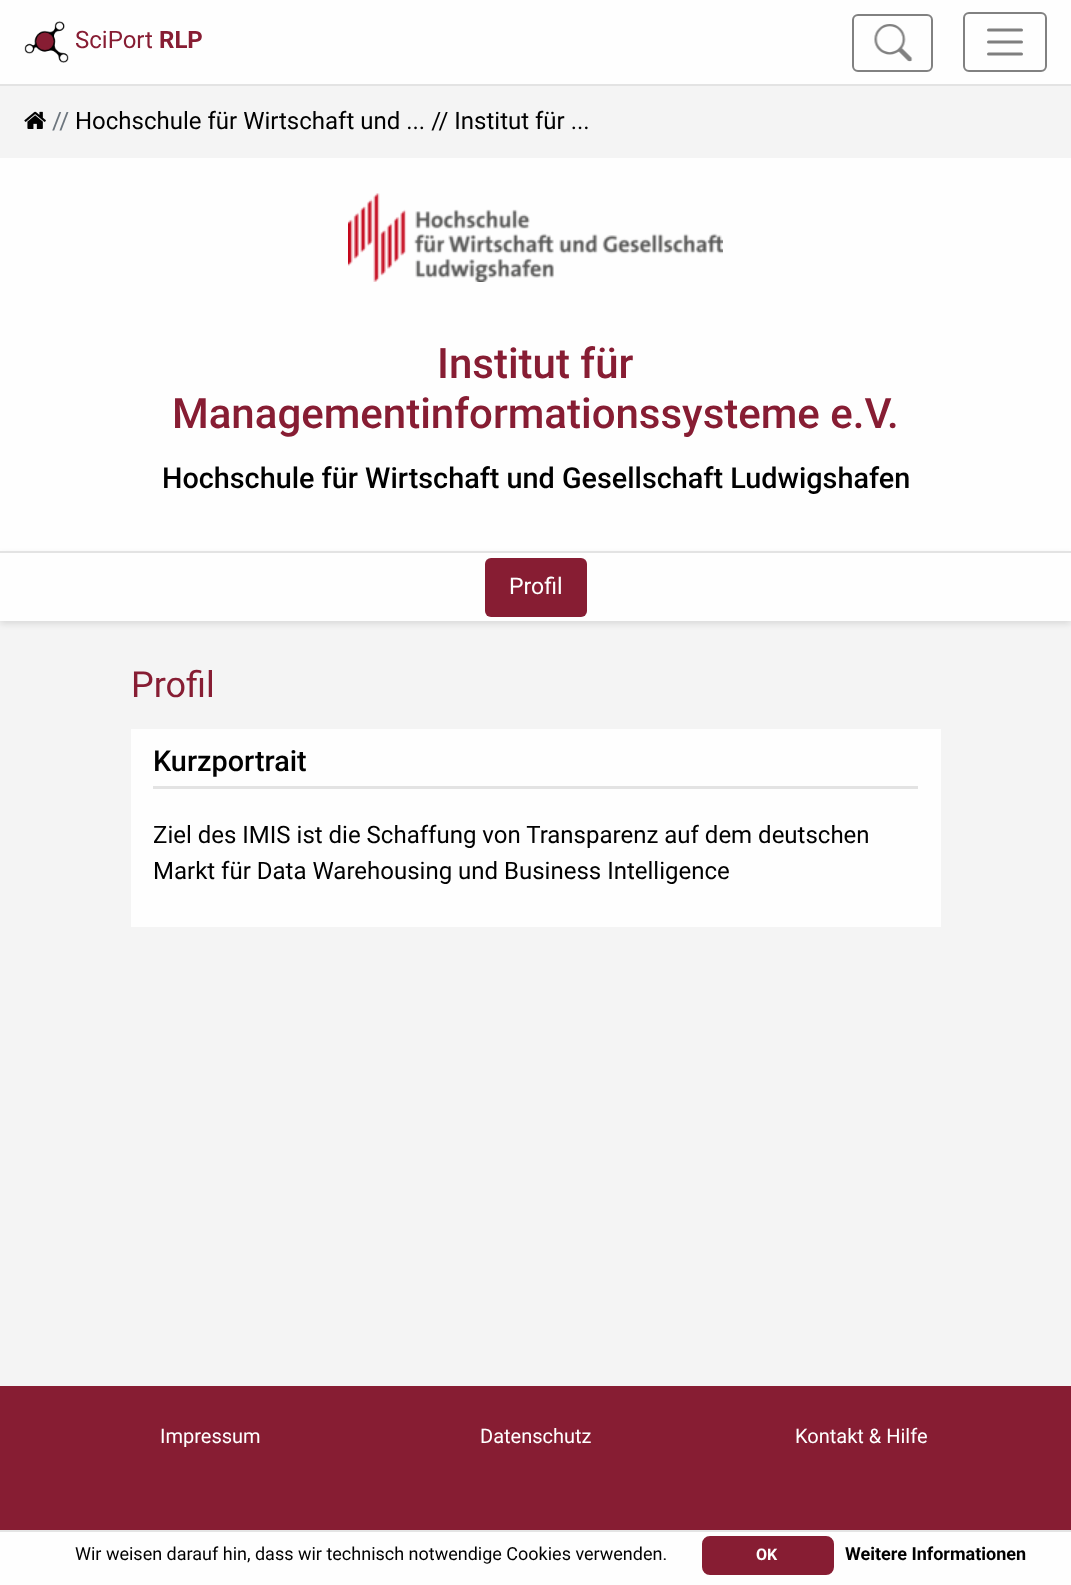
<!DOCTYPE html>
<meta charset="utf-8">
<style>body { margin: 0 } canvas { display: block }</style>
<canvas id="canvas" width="1071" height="1585"></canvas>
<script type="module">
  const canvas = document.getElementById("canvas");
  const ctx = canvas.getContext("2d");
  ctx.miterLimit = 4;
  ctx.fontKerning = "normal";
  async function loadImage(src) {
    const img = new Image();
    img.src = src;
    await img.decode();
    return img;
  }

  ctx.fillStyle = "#f4f4f4";
  ctx.fillRect(0, 0, 1071, 1585);
  ctx.fillStyle = "#fefefe";
  ctx.fillRect(0, 0, 1071, 84);
  ctx.fillStyle = "#e3e3e3";
  ctx.fillRect(0, 84, 1071, 2);
  ctx.drawImage(await loadImage("img1.png"), 24, 21, 45, 42);
  ctx.font = "24px Roboto";
  ctx.fillStyle = "#871d33";
  ctx.fillText("SciPort", 75, 48);
  ctx.font = "bold 24px Roboto";
  ctx.fillText("RLP", 159, 48);
  ctx.beginPath();
  ctx.roundRect(853, 15, 79, 56, 5);
  ctx.strokeStyle = "#818181";
  ctx.lineWidth = 2;
  ctx.stroke();
  ctx.drawImage(await loadImage("img2.png"), 874, 24, 39, 38);
  ctx.beginPath();
  ctx.roundRect(964, 13, 82, 58, 5);
  ctx.stroke();
  ctx.beginPath();
  ctx.moveTo(988.5, 30);
  ctx.lineTo(1021.5, 30);
  ctx.moveTo(988.5, 42);
  ctx.lineTo(1021.5, 42);
  ctx.moveTo(988.5, 54);
  ctx.lineTo(1021.5, 54);
  ctx.strokeStyle = "#7f7f7f";
  ctx.lineWidth = 3;
  ctx.lineCap = "round";
  ctx.stroke();
  ctx.drawImage(await loadImage("img3.png"), 24, 111, 22, 18);
  ctx.font = "24px Roboto";
  ctx.fillStyle = "#6c757d";
  ctx.fillText("//", 52, 129);
  ctx.fillStyle = "#010101";
  ctx.fillText("Hochschule für Wirtschaft und ... // Institut für ...", 75, 129);
  ctx.fillStyle = "#fefefe";
  ctx.fillRect(0, 158, 1071, 393);
  ctx.drawImage(await loadImage("img4.png"), 348, 193, 375, 89);
  ctx.font = "500 42px Roboto";
  ctx.fillStyle = "#871d33";
  ctx.fillText("Institut für", 437, 378);
  ctx.fillText("Managementinformationssysteme e.V.", 172, 428);
  ctx.font = "500 28.8px Roboto";
  ctx.fillStyle = "#010101";
  ctx.fillText("Hochschule für Wirtschaft und Gesellschaft Ludwigshafen", 162, 488);
  ctx.fillStyle = "rgba(0, 0, 0, 0.1)";
  ctx.filter = "blur(3px)";
  ctx.beginPath();
  ctx.rect(0, 554, 1071, 70);
  ctx.fill();
  ctx.filter = "none";
  ctx.fillStyle = "#fefefe";
  ctx.fillRect(0, 553, 1071, 68);
  ctx.fillStyle = "#e3e3e3";
  ctx.fillRect(0, 551, 1071, 2);
  ctx.fillStyle = "#871d33";
  ctx.beginPath();
  ctx.roundRect(485, 558, 102, 59, 6);
  ctx.fill();
  ctx.font = "23px Roboto";
  ctx.fillStyle = "#ffffff";
  ctx.fillText("Profil", 509, 594);
  ctx.font = "36px Roboto";
  ctx.fillStyle = "#871d33";
  ctx.fillText("Profil", 131, 697);
  ctx.fillStyle = "#fefefe";
  ctx.fillRect(131, 729, 810, 198);
  ctx.fillStyle = "#e3e3e3";
  ctx.fillRect(153, 786, 765, 3);
  ctx.font = "500 28.8px Roboto";
  ctx.fillStyle = "#010101";
  ctx.fillText("Kurzportrait", 153, 771);
  ctx.font = "24px Roboto";
  ctx.fillText("Ziel des IMIS ist die Schaffung von Transparenz auf dem deutschen", 153, 843);
  ctx.fillText("Markt für Data Warehousing und Business Intelligence", 153, 879);
  ctx.fillStyle = "#871d33";
  ctx.fillRect(0, 1386, 1071, 144);
  ctx.font = "20px Roboto";
  ctx.fillStyle = "#ffffff";
  ctx.fillText("Impressum", 160, 1443);
  ctx.fillText("Datenschutz", 480, 1443);
  ctx.fillText("Kontakt & Hilfe", 795, 1443);
  ctx.fillStyle = "#fefefe";
  ctx.fillRect(0, 1532, 1071, 53);
  ctx.fillStyle = "#e4e4e4";
  ctx.fillRect(0, 1530, 1071, 2);
  ctx.font = "18px Roboto";
  ctx.fillStyle = "#010101";
  ctx.fillText("Wir weisen darauf hin, dass wir technisch notwendige Cookies verwenden.", 75, 1560);
  ctx.fillStyle = "#871d33";
  ctx.beginPath();
  ctx.roundRect(703, 1537, 130, 37, 7);
  ctx.fill();
  ctx.strokeStyle = "#871d33";
  ctx.lineWidth = 2;
  ctx.stroke();
  ctx.font = "bold 16px Roboto";
  ctx.fillStyle = "#ffffff";
  ctx.fillText("OK", 756, 1560);
  ctx.font = "bold 18px Roboto";
  ctx.fillStyle = "#010101";
  ctx.fillText("Weitere Informationen", 845, 1560);
</script>
